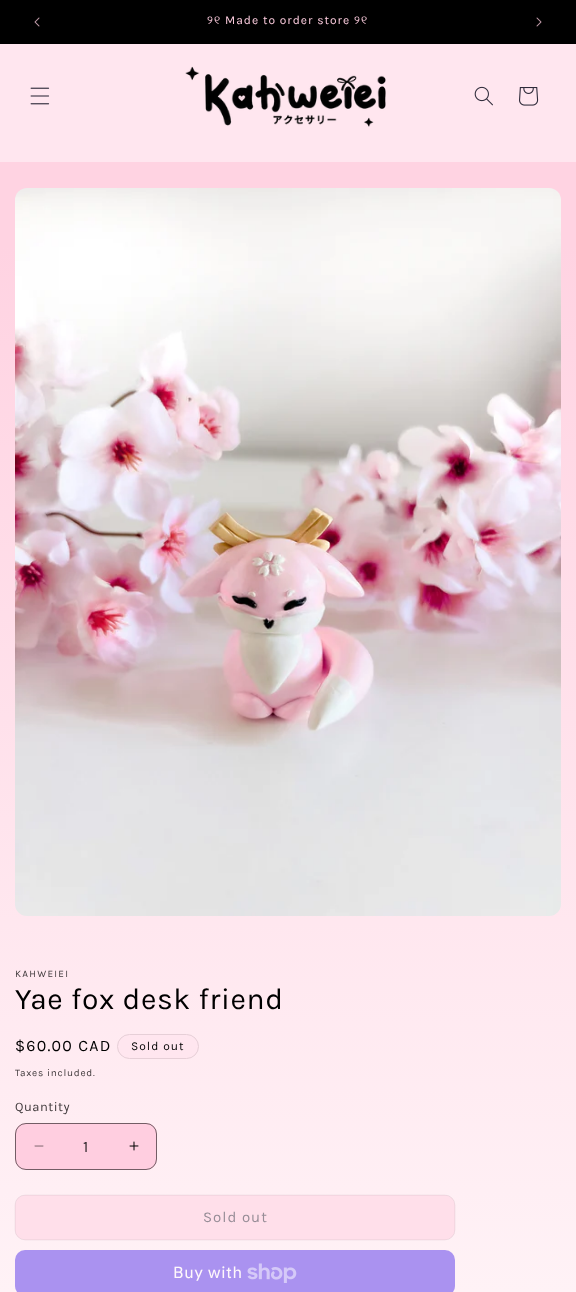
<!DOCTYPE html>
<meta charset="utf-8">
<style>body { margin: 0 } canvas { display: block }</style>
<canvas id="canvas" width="576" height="1292"></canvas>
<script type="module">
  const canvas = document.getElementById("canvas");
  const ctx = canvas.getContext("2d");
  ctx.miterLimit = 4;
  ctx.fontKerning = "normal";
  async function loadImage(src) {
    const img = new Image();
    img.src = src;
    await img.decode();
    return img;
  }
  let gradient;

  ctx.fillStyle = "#ffe6ef";
  ctx.fillRect(0, 0, 576, 1292);
  ctx.fillStyle = "#000000";
  ctx.fillRect(0, 0, 576, 44);
  ctx.drawImage(await loadImage("img1.png"), 34, 17, 6, 10);
  ctx.letterSpacing = "1px";
  ctx.font = "12px FreeSerif";
  ctx.fillStyle = "#ffcee0";
  ctx.fillText("୨୧", 207, 24);
  ctx.font = "12px Karla";
  ctx.fillText("Made to order store", 225, 24);
  ctx.font = "12px FreeSerif";
  ctx.fillText("୨୧", 354, 24);
  ctx.drawImage(await loadImage("img2.png"), 536, 17, 6, 10);
  ctx.drawImage(await loadImage("img3.png"), 30, 87, 20, 18);
  ctx.drawImage(await loadImage("img4.png"), 185, 66, 201, 61);
  ctx.drawImage(await loadImage("img5.png"), 474, 86, 19, 20);
  ctx.drawImage(await loadImage("img6.png"), 519, 87, 20, 19);
  gradient = ctx.createLinearGradient(288, 0, 288, 1292);
  gradient.addColorStop(0.02, "#ffd3e2");
  gradient.addColorStop(0.19, "#ffd3e2");
  gradient.addColorStop(1, "#fff2f6");
  ctx.fillStyle = gradient;
  ctx.fillRect(0, 162, 576, 1130);
  ctx.drawImage(await loadImage("img7.png"), 15, 188, 546, 728);
  ctx.letterSpacing = "1.25px";
  ctx.font = "10px Karla";
  ctx.fillStyle = "#403a3c";
  ctx.fillText("KAHWEIEI", 15, 977);
  ctx.letterSpacing = "0.6px";
  ctx.font = "30px Karla";
  ctx.fillStyle = "#000000";
  ctx.fillText("Yae fox desk friend", 15, 1009);
  ctx.letterSpacing = "1.25px";
  ctx.font = "16px Karla";
  ctx.fillText("$60.00 CAD", 15, 1051);
  ctx.fillStyle = "#ffe6ef";
  ctx.beginPath();
  ctx.roundRect(117.5, 1034.5, 81, 24, 12);
  ctx.fill();
  ctx.strokeStyle = "#e6cfd7";
  ctx.stroke();
  ctx.letterSpacing = "1px";
  ctx.font = "12px Karla";
  ctx.fillStyle = "#000000";
  ctx.fillText("Sold out", 131, 1050);
  ctx.letterSpacing = "0.75px";
  ctx.font = "10px Karla";
  ctx.fillStyle = "#403a3c";
  ctx.fillText("Taxes included.", 15, 1076);
  ctx.letterSpacing = "0.5px";
  ctx.font = "13px Karla";
  ctx.fillText("Quantity", 15, 1111);
  ctx.fillStyle = "#ffcee0";
  ctx.beginPath();
  ctx.roundRect(15, 1123, 142, 47, 11);
  ctx.fill();
  ctx.drawImage(await loadImage("img8.png"), 34, 1145, 10, 2);
  ctx.drawImage(await loadImage("img9.png"), 129, 1141, 10, 10);
  ctx.beginPath();
  ctx.roundRect(15.5, 1123.5, 141, 46, 10.5);
  ctx.strokeStyle = "rgba(0, 0, 0, 0.55)";
  ctx.stroke();
  ctx.letterSpacing = "0px";
  ctx.font = "16px Karla";
  ctx.fillStyle = "#261f22";
  ctx.fillText("1", 83, 1152);
  ctx.fillStyle = "#ffdfea";
  ctx.beginPath();
  ctx.roundRect(15, 1195, 440, 45, 10);
  ctx.fill();
  ctx.beginPath();
  ctx.roundRect(15.15, 1195.15, 439.7, 44.7, 9.85);
  ctx.strokeStyle = "rgba(151, 141, 151, 0.55)";
  ctx.lineWidth = 0.3;
  ctx.stroke();
  ctx.letterSpacing = "1px";
  ctx.font = "15px Karla";
  ctx.fillStyle = "#978d97";
  ctx.fillText("Sold out", 203, 1222);
  ctx.fillStyle = "#aa92f0";
  ctx.beginPath();
  ctx.roundRect(15, 1250, 440, 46, 10);
  ctx.fill();
  ctx.letterSpacing = "0.6px";
  ctx.font = "16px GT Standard";
  ctx.fillStyle = "#fff8fb";
  ctx.fillText("Buy with", 173, 1278);
  ctx.drawImage(await loadImage("img10.png"), 247, 1263, 50, 20);
</script>
